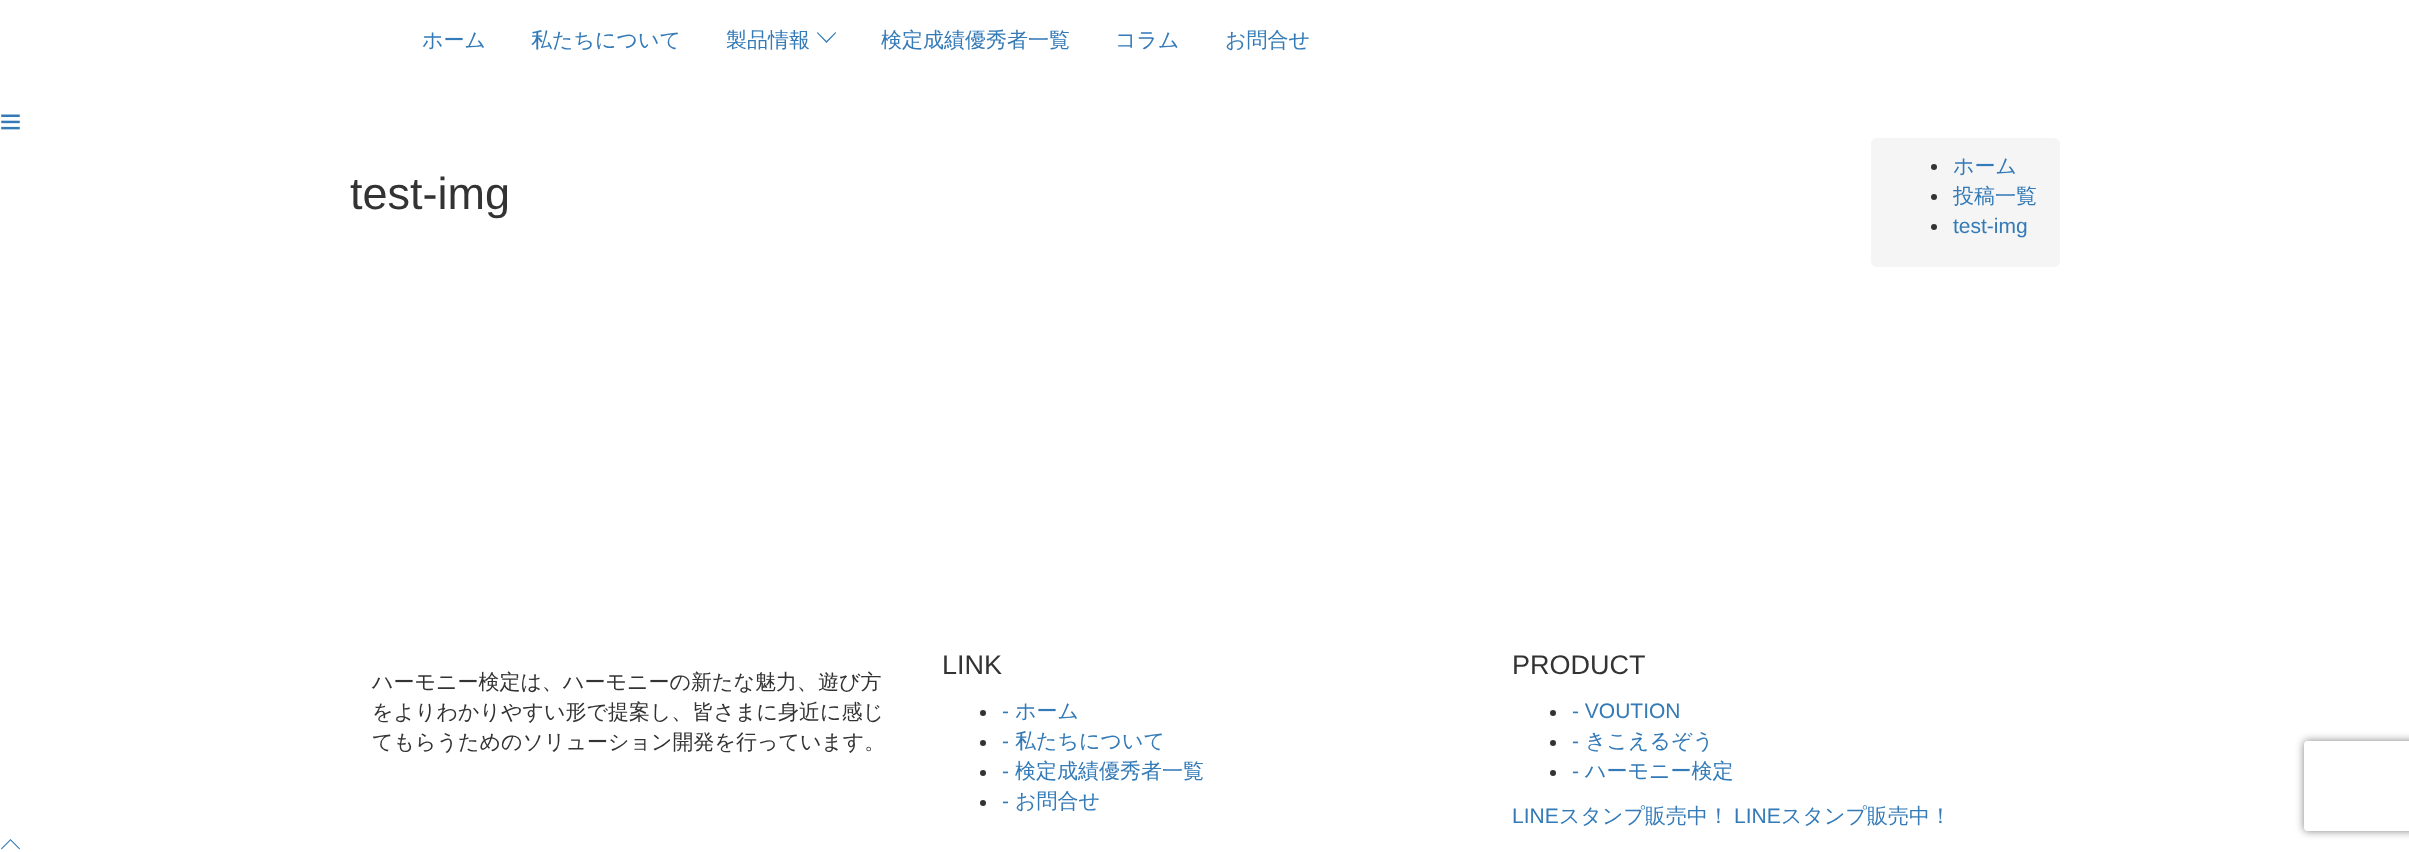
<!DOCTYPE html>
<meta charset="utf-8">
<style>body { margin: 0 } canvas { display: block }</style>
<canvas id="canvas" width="2409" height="852"></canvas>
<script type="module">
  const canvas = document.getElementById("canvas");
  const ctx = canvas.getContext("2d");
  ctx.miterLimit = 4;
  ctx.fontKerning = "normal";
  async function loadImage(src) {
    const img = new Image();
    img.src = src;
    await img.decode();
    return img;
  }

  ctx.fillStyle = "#ffffff";
  ctx.fillRect(0, 0, 2409, 852);
  ctx.font = "500 21px WenQuanYi Zen Hei";
  ctx.fillStyle = "#337ab7";
  ctx.fillText("ホーム", 422, 47);
  ctx.fillText("私たちについて", 531, 47);
  ctx.fillText("製品情報", 726, 47);
  ctx.beginPath();
  ctx.moveTo(836, 33);
  ctx.lineTo(826.5, 43);
  ctx.lineTo(817, 33);
  ctx.lineTo(817.5, 32);
  ctx.lineTo(826.5, 41);
  ctx.lineTo(835.5, 32);
  ctx.closePath();
  ctx.fill();
  ctx.fillText("検定成績優秀者一覧", 881, 47);
  ctx.fillText("コラム", 1115, 47);
  ctx.fillText("お問合せ", 1225, 47);
  ctx.drawImage(await loadImage("img1.png"), 1, 114, 19, 16);
  ctx.font = "45px Liberation Sans";
  ctx.fillStyle = "#333333";
  ctx.fillText("test-img", 350, 209);
  ctx.fillStyle = "#f5f5f5";
  ctx.beginPath();
  ctx.roundRect(1871, 138, 189, 129, 6);
  ctx.fill();
  ctx.fillStyle = "#333333";
  ctx.beginPath();
  ctx.arc(1934, 167, 3, 0, Math.PI * 2);
  ctx.fill();
  ctx.font = "500 21px WenQuanYi Zen Hei";
  ctx.fillStyle = "#337ab7";
  ctx.fillText("ホーム", 1953, 173);
  ctx.fillStyle = "#333333";
  ctx.beginPath();
  ctx.arc(1934, 197, 3, 0, Math.PI * 2);
  ctx.fill();
  ctx.fillStyle = "#337ab7";
  ctx.fillText("投稿一覧", 1953, 203);
  ctx.fillStyle = "#333333";
  ctx.beginPath();
  ctx.arc(1934, 227, 3, 0, Math.PI * 2);
  ctx.fill();
  ctx.font = "21px Liberation Sans";
  ctx.fillStyle = "#337ab7";
  ctx.fillText("test-img", 1953, 233);
  ctx.beginPath();
  ctx.moveTo(20, 848.5);
  ctx.lineTo(19.5, 849.5);
  ctx.lineTo(10.5, 840.5);
  ctx.lineTo(1.5, 849.5);
  ctx.lineTo(1, 848.5);
  ctx.lineTo(10.5, 839);
  ctx.closePath();
  ctx.fill();
  ctx.font = "500 21px WenQuanYi Zen Hei";
  ctx.fillStyle = "#333333";
  ctx.fillText("ハーモニー検定は、ハーモニーの新たな魅力、遊び方", 372, 689);
  ctx.fillText("をよりわかりやすい形で提案し、皆さまに身近に感じ", 372, 719);
  ctx.fillText("てもらうためのソリューション開発を行っています。", 372, 749);
  ctx.font = "27px Liberation Sans";
  ctx.fillText("LINK", 942, 674);
  ctx.beginPath();
  ctx.arc(983, 713, 3, 0, Math.PI * 2);
  ctx.fill();
  ctx.font = "21px Liberation Sans";
  ctx.fillStyle = "#337ab7";
  ctx.fillText("-", 1002, 718);
  ctx.font = "500 21px WenQuanYi Zen Hei";
  ctx.fillText("ホーム", 1015, 718);
  ctx.fillStyle = "#333333";
  ctx.beginPath();
  ctx.arc(983, 743, 3, 0, Math.PI * 2);
  ctx.fill();
  ctx.font = "21px Liberation Sans";
  ctx.fillStyle = "#337ab7";
  ctx.fillText("-", 1002, 748);
  ctx.font = "500 21px WenQuanYi Zen Hei";
  ctx.fillText("私たちについて", 1015, 748);
  ctx.fillStyle = "#333333";
  ctx.beginPath();
  ctx.arc(983, 773, 3, 0, Math.PI * 2);
  ctx.fill();
  ctx.font = "21px Liberation Sans";
  ctx.fillStyle = "#337ab7";
  ctx.fillText("-", 1002, 778);
  ctx.font = "500 21px WenQuanYi Zen Hei";
  ctx.fillText("検定成績優秀者一覧", 1015, 778);
  ctx.fillStyle = "#333333";
  ctx.beginPath();
  ctx.arc(983, 803, 3, 0, Math.PI * 2);
  ctx.fill();
  ctx.font = "21px Liberation Sans";
  ctx.fillStyle = "#337ab7";
  ctx.fillText("-", 1002, 808);
  ctx.font = "500 21px WenQuanYi Zen Hei";
  ctx.fillText("お問合せ", 1015, 808);
  ctx.font = "27px Liberation Sans";
  ctx.fillStyle = "#333333";
  ctx.fillText("PRODUCT", 1512, 674);
  ctx.beginPath();
  ctx.arc(1553, 713, 3, 0, Math.PI * 2);
  ctx.fill();
  ctx.font = "21px Liberation Sans";
  ctx.fillStyle = "#337ab7";
  ctx.fillText("- VOUTION", 1572, 718);
  ctx.fillStyle = "#333333";
  ctx.beginPath();
  ctx.arc(1553, 743, 3, 0, Math.PI * 2);
  ctx.fill();
  ctx.fillStyle = "#337ab7";
  ctx.fillText("-", 1572, 748);
  ctx.font = "500 21px WenQuanYi Zen Hei";
  ctx.fillText("きこえるぞう", 1585, 748);
  ctx.fillStyle = "#333333";
  ctx.beginPath();
  ctx.arc(1553, 773, 3, 0, Math.PI * 2);
  ctx.fill();
  ctx.font = "21px Liberation Sans";
  ctx.fillStyle = "#337ab7";
  ctx.fillText("-", 1572, 778);
  ctx.font = "500 21px WenQuanYi Zen Hei";
  ctx.fillText("ハーモニー検定", 1585, 778);
  ctx.font = "21px Liberation Sans";
  ctx.fillText("LINE", 1512, 823);
  ctx.font = "500 21px WenQuanYi Zen Hei";
  ctx.fillText("スタンプ販売中！", 1559, 823);
  ctx.font = "21px Liberation Sans";
  ctx.fillText("LINE", 1734, 823);
  ctx.font = "500 21px WenQuanYi Zen Hei";
  ctx.fillText("スタンプ販売中！", 1781, 823);
  ctx.save();
  ctx.beginPath();
  ctx.moveTo(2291, 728);
  ctx.lineTo(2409, 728);
  ctx.lineTo(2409, 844);
  ctx.lineTo(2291, 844);
  ctx.closePath();
  ctx.moveTo(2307, 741);
  ctx.lineTo(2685, 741);
  ctx.bezierCurveTo(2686.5, 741, 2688, 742.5, 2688, 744);
  ctx.lineTo(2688, 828);
  ctx.bezierCurveTo(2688, 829.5, 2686.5, 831, 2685, 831);
  ctx.lineTo(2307, 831);
  ctx.bezierCurveTo(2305.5, 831, 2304, 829.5, 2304, 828);
  ctx.lineTo(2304, 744);
  ctx.bezierCurveTo(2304, 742.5, 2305.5, 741, 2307, 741);
  ctx.closePath();
  ctx.clip("evenodd");
  ctx.fillStyle = "#808080";
  ctx.filter = "blur(4px)";
  ctx.beginPath();
  ctx.roundRect(2304, 741, 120, 90, 3);
  ctx.fill();
  ctx.filter = "none";
  ctx.restore();
</script>
